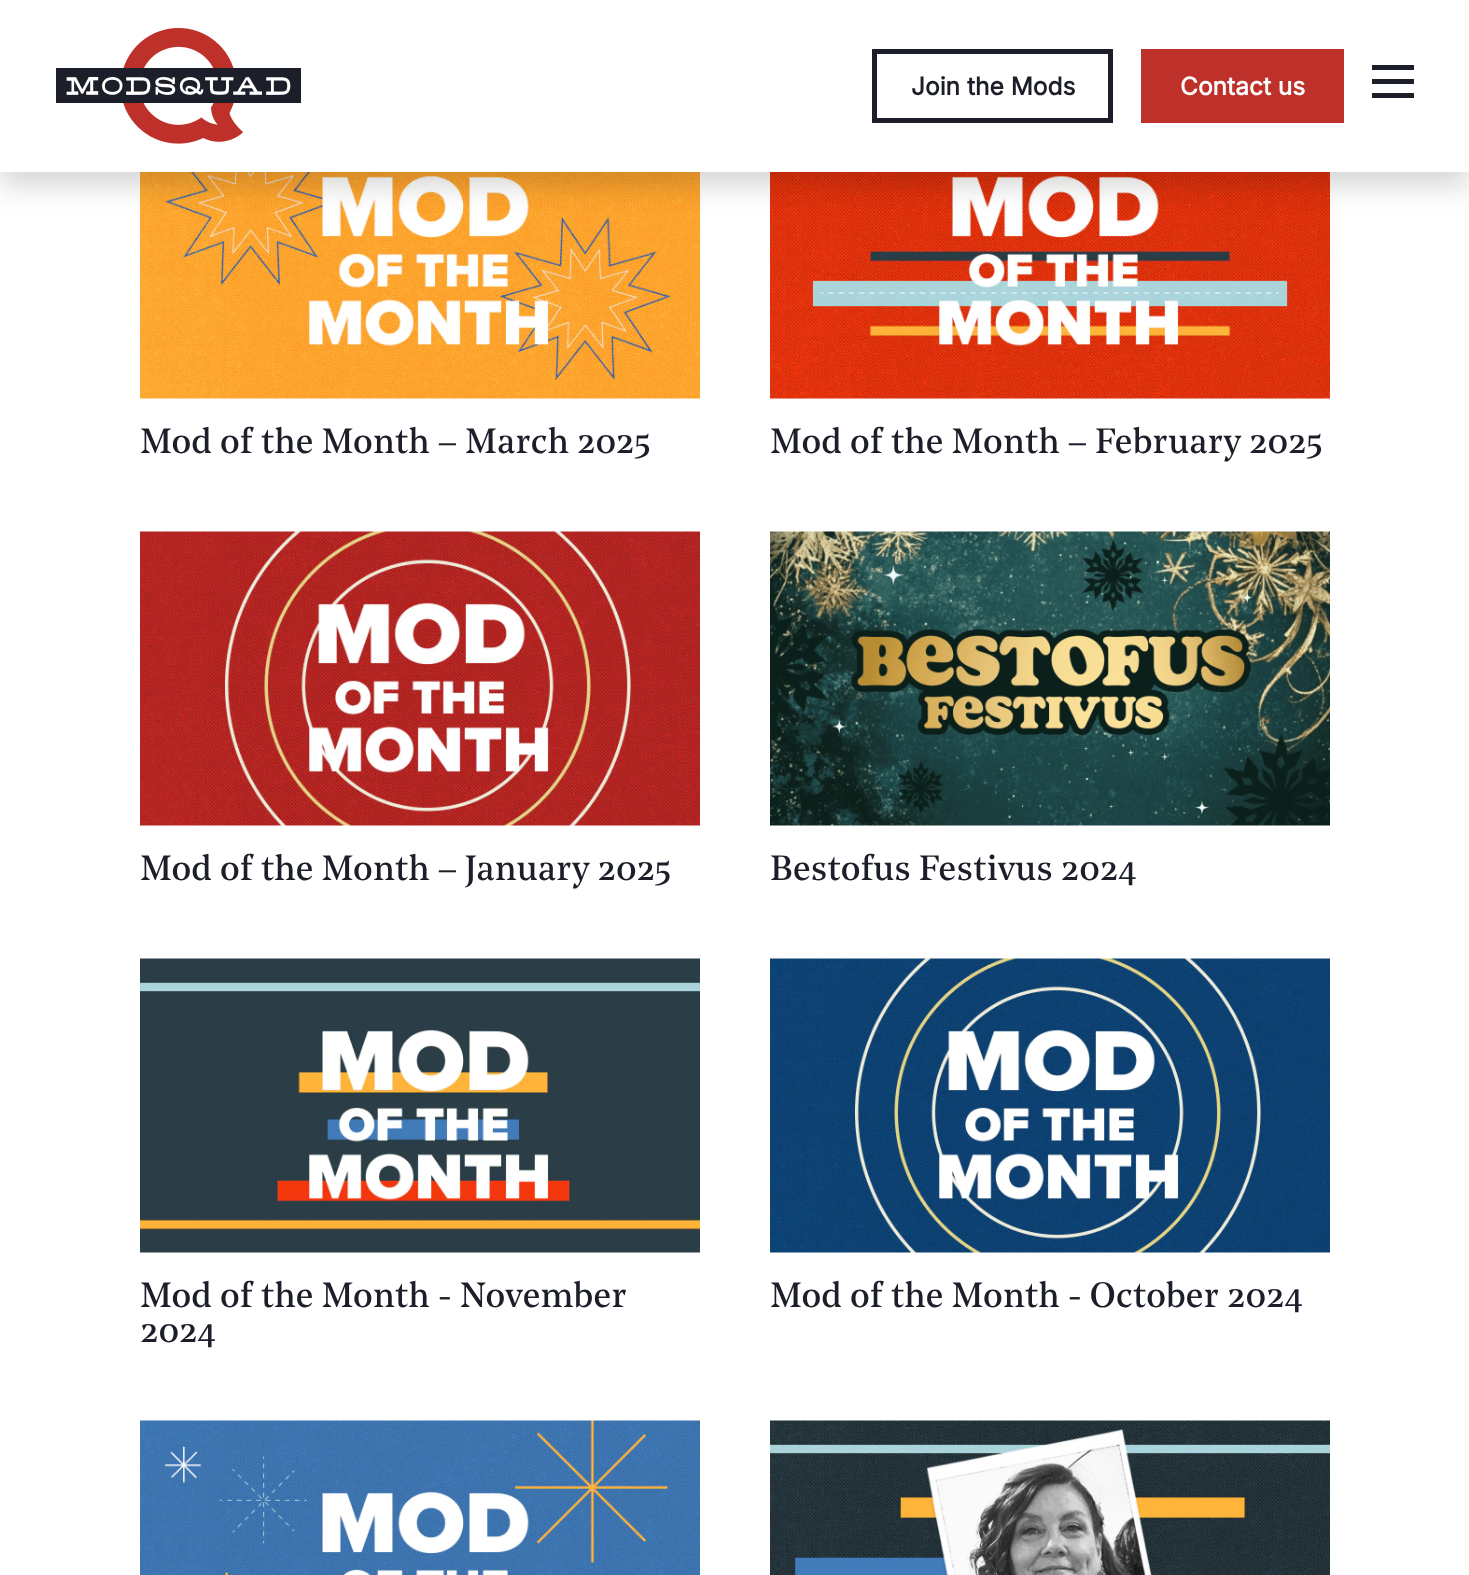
<!DOCTYPE html>
<meta charset="utf-8">
<style>body { margin: 0 } canvas { display: block }</style>
<canvas id="canvas" width="1469" height="1575"></canvas>
<script type="module">
  const canvas = document.getElementById("canvas");
  const ctx = canvas.getContext("2d");
  ctx.miterLimit = 4;
  ctx.fontKerning = "normal";
  async function loadImage(src) {
    const img = new Image();
    img.src = src;
    await img.decode();
    return img;
  }

  ctx.fillStyle = "#ffffff";
  ctx.fillRect(0, 0, 1469, 1575);
  ctx.drawImage(await loadImage("img2.png"), 140, 172, 560, 227);
  ctx.drawImage(await loadImage("img3.png"), 770, 172, 560, 227);
  ctx.fillStyle = "rgba(0, 0, 0, 0.16)";
  ctx.filter = "blur(14px)";
  ctx.beginPath();
  ctx.rect(0, 14, 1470, 172);
  ctx.fill();
  ctx.filter = "none";
  ctx.fillStyle = "#ffffff";
  ctx.fillRect(0, 0, 1469, 172);
  ctx.drawImage(await loadImage("img1.png"), 56, 28, 245, 116);
  ctx.strokeStyle = "#1c1f29";
  ctx.lineWidth = 5;
  ctx.strokeRect(874.5, 51.5, 236, 69);
  ctx.font = "bold 24.5px Inter";
  ctx.fillStyle = "#1c1f29";
  ctx.fillText("Join the Mods", 911, 95);
  ctx.fillStyle = "#be302a";
  ctx.fillRect(1141, 49, 203, 74);
  ctx.fillStyle = "#ffffff";
  ctx.fillText("Contact us", 1180, 95);
  ctx.fillStyle = "#1c1f29";
  ctx.fillRect(1372, 65, 42, 5);
  ctx.fillRect(1372, 79, 42, 5);
  ctx.fillRect(1372, 93, 42, 5);
  ctx.font = "35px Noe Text";
  ctx.fillText("Mod of the Month – March 2025", 140, 453);
  ctx.fillText("Mod of the Month – February 2025", 770, 453);
  ctx.drawImage(await loadImage("img4.png"), 140, 531, 560, 295);
  ctx.fillText("Mod of the Month – January 2025", 140, 880);
  ctx.drawImage(await loadImage("img5.png"), 770, 531, 560, 295);
  ctx.fillText("Bestofus Festivus 2024", 770, 880);
  ctx.drawImage(await loadImage("img6.png"), 140, 958, 560, 295);
  ctx.fillText("Mod of the Month - November", 140, 1307);
  ctx.fillText("2024", 140, 1342);
  ctx.drawImage(await loadImage("img7.png"), 770, 958, 560, 295);
  ctx.fillText("Mod of the Month - October 2024", 770, 1307);
  ctx.drawImage(await loadImage("img8.png"), 140, 1420, 560, 155);
  ctx.drawImage(await loadImage("img9.png"), 770, 1420, 560, 155);
</script>
